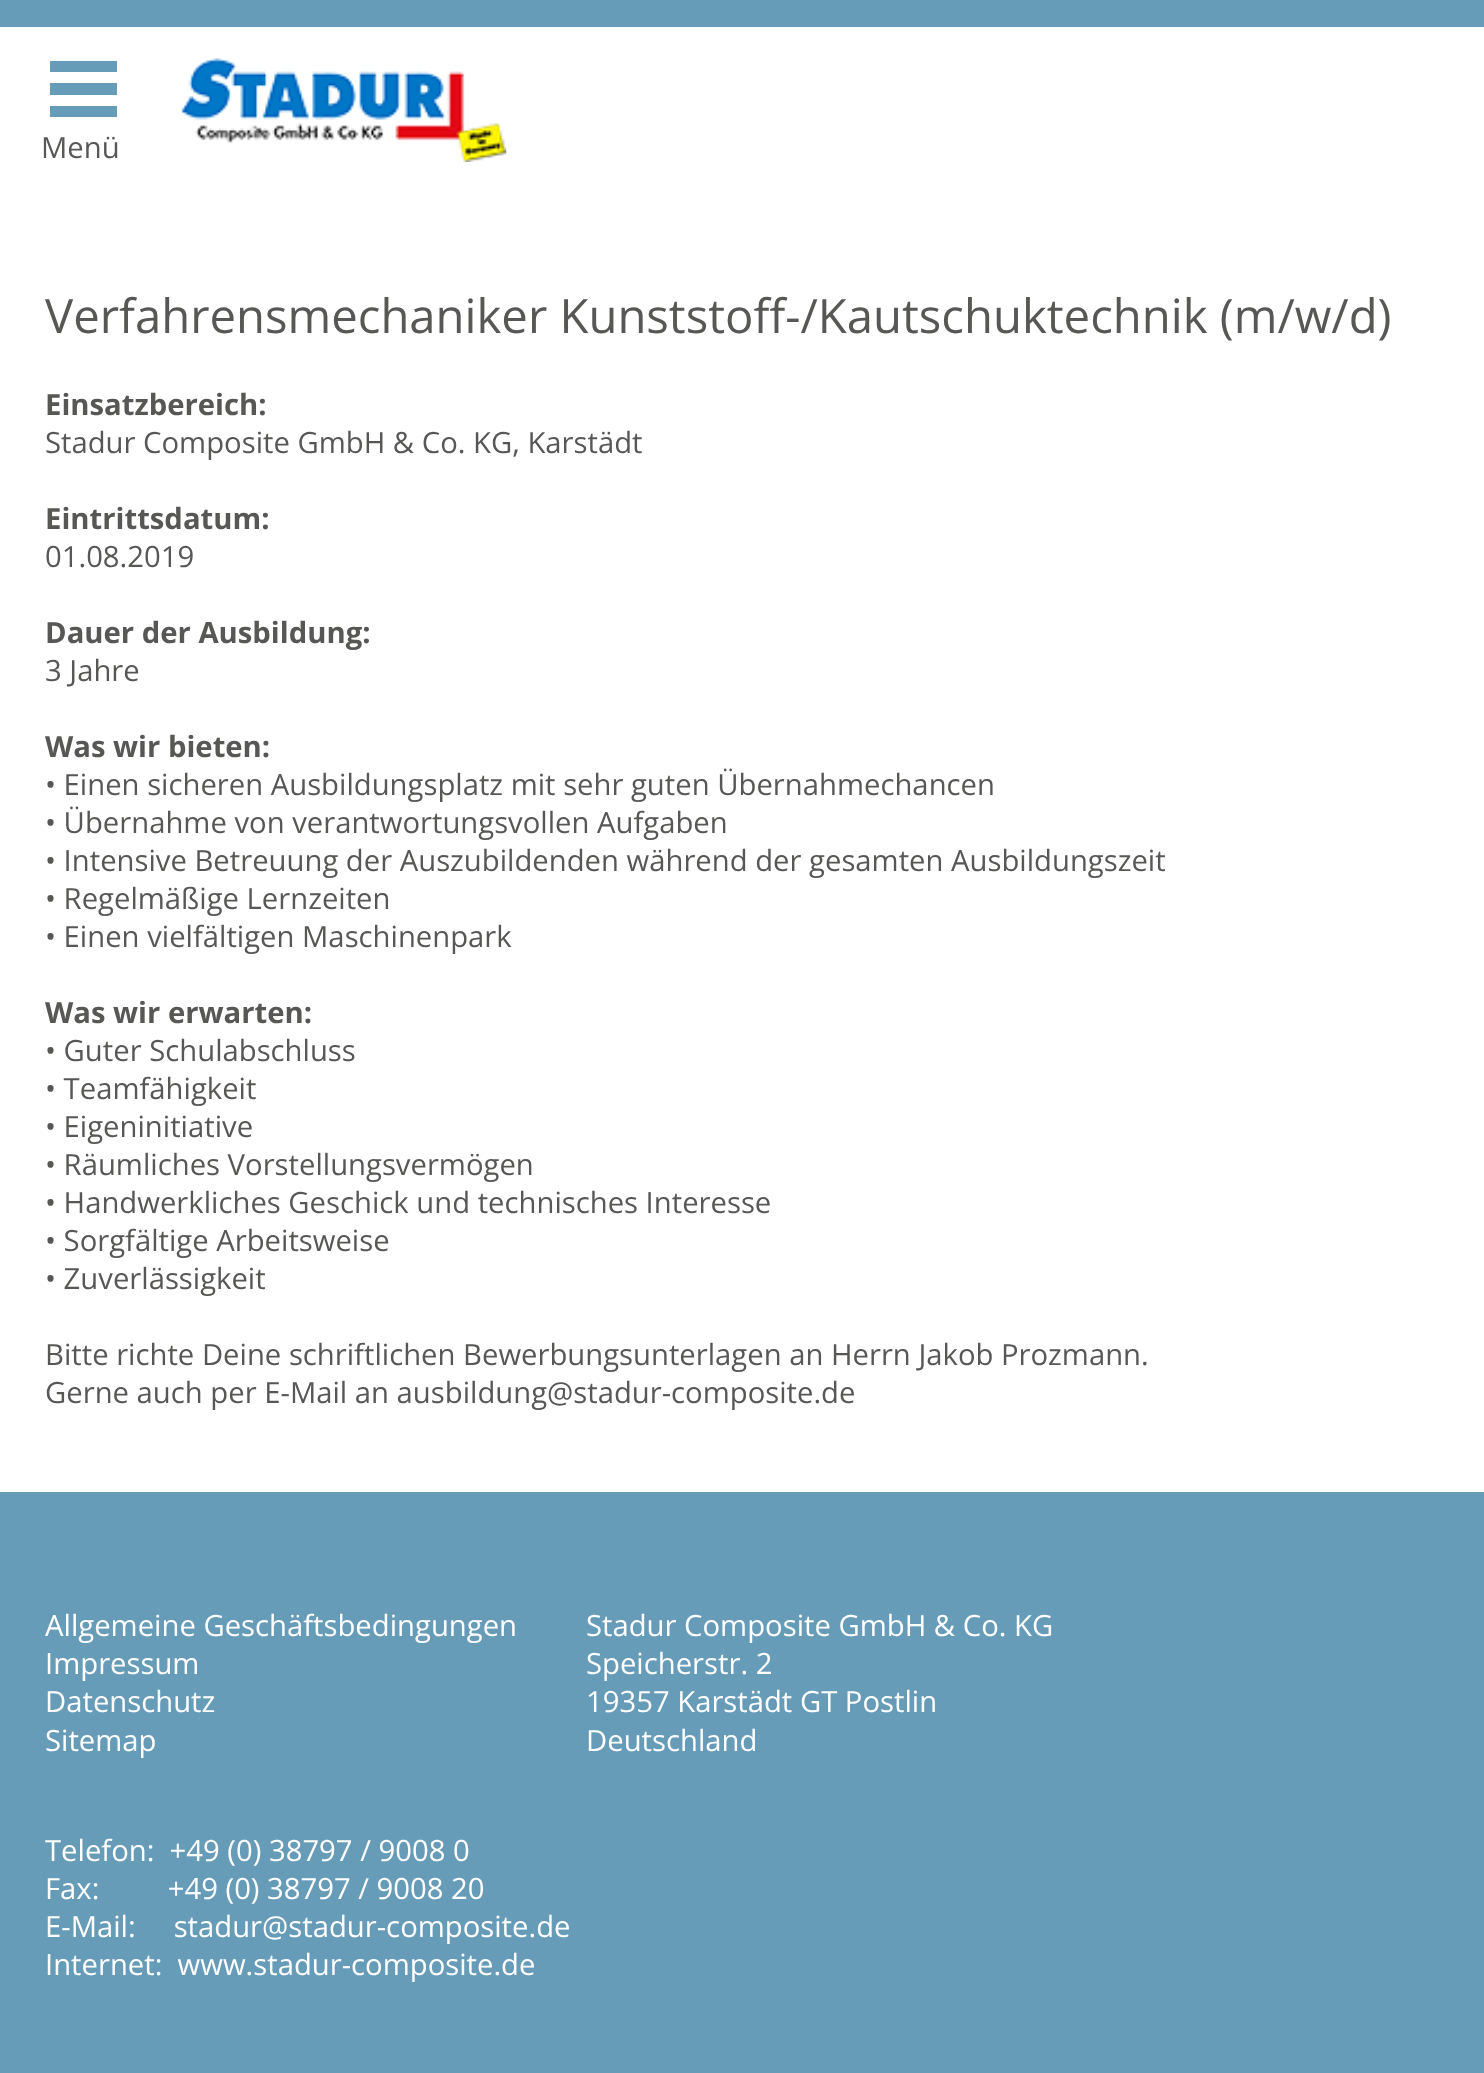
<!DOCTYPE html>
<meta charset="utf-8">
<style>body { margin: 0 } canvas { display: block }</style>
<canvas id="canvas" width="1484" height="2073"></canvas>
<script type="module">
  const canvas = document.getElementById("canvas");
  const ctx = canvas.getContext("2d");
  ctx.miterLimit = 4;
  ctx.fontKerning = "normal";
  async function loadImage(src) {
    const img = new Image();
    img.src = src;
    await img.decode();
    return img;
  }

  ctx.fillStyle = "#ffffff";
  ctx.fillRect(0, 0, 1484, 2073);
  ctx.fillStyle = "#679cb9";
  ctx.fillRect(0, 0, 1484, 27);
  ctx.fillRect(50, 61, 67, 11);
  ctx.fillRect(50, 83, 67, 12);
  ctx.fillRect(50, 106, 67, 11);
  ctx.font = "29.25px Open Sans";
  ctx.fillStyle = "#575756";
  ctx.fillText("Menü", 41, 158);
  ctx.drawImage(await loadImage("img1.png"), 181, 58, 326, 104);
  ctx.font = "47.25px Open Sans";
  ctx.fillText("Verfahrensmechaniker Kunststoff-/Kautschuktechnik (m/w/d)", 45, 333);
  ctx.font = "bold 29.25px Open Sans";
  ctx.fillText("Einsatzbereich:", 45, 415);
  ctx.font = "29.25px Open Sans";
  ctx.fillText("Stadur Composite GmbH & Co. KG, Karstädt", 45, 453);
  ctx.font = "bold 29.25px Open Sans";
  ctx.fillText("Eintrittsdatum:", 45, 529);
  ctx.font = "29.25px Open Sans";
  ctx.fillText("01.08.2019", 45, 567);
  ctx.font = "bold 29.25px Open Sans";
  ctx.fillText("Dauer der Ausbildung:", 45, 643);
  ctx.font = "29.25px Open Sans";
  ctx.fillText("3 Jahre", 45, 681);
  ctx.font = "bold 29.25px Open Sans";
  ctx.fillText("Was wir bieten:", 45, 757);
  ctx.font = "29.25px Open Sans";
  ctx.fillText("• Einen sicheren Ausbildungsplatz mit sehr guten Übernahmechancen", 45, 795);
  ctx.fillText("• Übernahme von verantwortungsvollen Aufgaben", 45, 833);
  ctx.fillText("• Intensive Betreuung der Auszubildenden während der gesamten Ausbildungszeit", 45, 871);
  ctx.fillText("• Regelmäßige Lernzeiten", 45, 909);
  ctx.fillText("• Einen vielfältigen Maschinenpark", 45, 947);
  ctx.font = "bold 29.25px Open Sans";
  ctx.fillText("Was wir erwarten:", 45, 1023);
  ctx.font = "29.25px Open Sans";
  ctx.fillText("• Guter Schulabschluss", 45, 1061);
  ctx.fillText("• Teamfähigkeit", 45, 1099);
  ctx.fillText("• Eigeninitiative", 45, 1137);
  ctx.fillText("• Räumliches Vorstellungsvermögen", 45, 1175);
  ctx.fillText("• Handwerkliches Geschick und technisches Interesse", 45, 1213);
  ctx.fillText("• Sorgfältige Arbeitsweise", 45, 1251);
  ctx.fillText("• Zuverlässigkeit", 45, 1289);
  ctx.fillText("Bitte richte Deine schriftlichen Bewerbungsunterlagen an Herrn Jakob Prozmann.", 45, 1365);
  ctx.fillText("Gerne auch per E-Mail an ausbildung@stadur-composite.de", 45, 1403);
  ctx.fillStyle = "#679cb9";
  ctx.fillRect(0, 1492, 1484, 581);
  ctx.fillStyle = "#ffffff";
  ctx.fillText("Allgemeine Geschäftsbedingungen", 45, 1636);
  ctx.fillText("Impressum", 45, 1674);
  ctx.fillText("Datenschutz", 45, 1712);
  ctx.fillText("Sitemap", 45, 1751);
  ctx.fillText("Stadur Composite GmbH & Co. KG", 586, 1636);
  ctx.fillText("Speicherstr. 2", 586, 1674);
  ctx.fillText("19357 Karstädt GT Postlin", 586, 1712);
  ctx.fillText("Deutschland", 586, 1751);
  ctx.fillText("Telefon:  +49 (0) 38797 / 9008 0", 45, 1861);
  ctx.fillText("Fax:         +49 (0) 38797 / 9008 20", 45, 1899);
  ctx.fillText("E-Mail:     stadur@stadur-composite.de", 45, 1937);
  ctx.fillText("Internet:  www.stadur-composite.de", 45, 1975);
</script>
